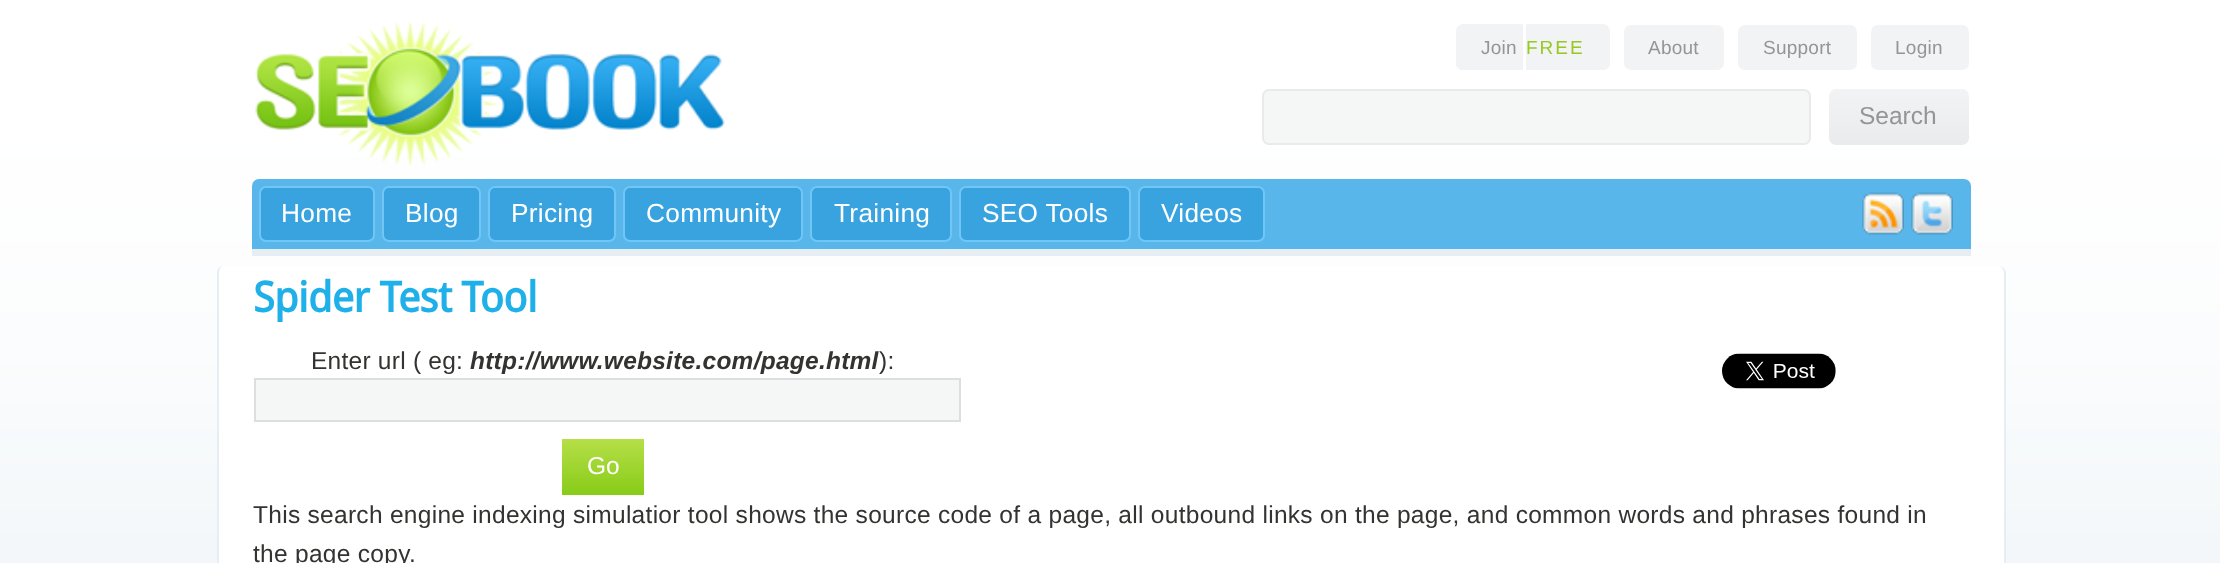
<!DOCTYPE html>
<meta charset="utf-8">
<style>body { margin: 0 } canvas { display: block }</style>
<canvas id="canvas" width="2220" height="563"></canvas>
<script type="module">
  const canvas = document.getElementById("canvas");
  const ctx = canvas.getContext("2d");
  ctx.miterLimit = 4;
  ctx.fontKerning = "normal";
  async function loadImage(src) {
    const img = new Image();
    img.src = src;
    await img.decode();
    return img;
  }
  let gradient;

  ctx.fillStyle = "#ffffff";
  ctx.fillRect(0, 0, 2220, 563);
  ctx.drawImage(await loadImage("img1.png"), 0, 0, 2220, 563);
  ctx.drawImage(await loadImage("img2.png"), 255, 21, 470, 145);
  ctx.fillStyle = "#f2f3f4";
  ctx.beginPath();
  ctx.roundRect(1456, 25, 67, 45, [7, 0, 0, 7]);
  ctx.fill();
  ctx.beginPath();
  ctx.moveTo(1463, 24);
  ctx.lineTo(1522, 24);
  ctx.lineTo(1522, 70);
  ctx.lineTo(1463, 70);
  ctx.bezierCurveTo(1459, 70, 1456, 67, 1456, 63);
  ctx.lineTo(1456, 32);
  ctx.bezierCurveTo(1456, 28, 1459, 24, 1463, 24);
  ctx.closePath();
  ctx.moveTo(1463, 28);
  ctx.lineTo(1522, 28);
  ctx.lineTo(1522, 66);
  ctx.lineTo(1463, 66);
  ctx.bezierCurveTo(1461, 66, 1460, 65, 1460, 63);
  ctx.lineTo(1460, 32);
  ctx.bezierCurveTo(1460, 30, 1461, 28, 1463, 28);
  ctx.closePath();
  ctx.fill("evenodd");
  ctx.letterSpacing = "0.25px";
  ctx.font = "19px Liberation Sans";
  ctx.fillStyle = "#959595";
  ctx.fillText("Join", 1481, 54);
  ctx.fillStyle = "#f2f3f4";
  ctx.beginPath();
  ctx.roundRect(1526, 25, 84, 45, [0, 7, 7, 0]);
  ctx.fill();
  ctx.beginPath();
  ctx.moveTo(1526, 24);
  ctx.lineTo(1603, 24);
  ctx.bezierCurveTo(1607, 24, 1610, 28, 1610, 32);
  ctx.lineTo(1610, 63);
  ctx.bezierCurveTo(1610, 67, 1607, 70, 1603, 70);
  ctx.lineTo(1526, 70);
  ctx.closePath();
  ctx.moveTo(1526, 28);
  ctx.lineTo(1603, 28);
  ctx.bezierCurveTo(1605, 28, 1606, 30, 1606, 32);
  ctx.lineTo(1606, 63);
  ctx.bezierCurveTo(1606, 65, 1605, 66, 1603, 66);
  ctx.lineTo(1526, 66);
  ctx.closePath();
  ctx.fill("evenodd");
  ctx.letterSpacing = "2px";
  ctx.fillStyle = "#97c922";
  ctx.fillText("FREE", 1526, 54);
  ctx.fillStyle = "#f2f3f4";
  ctx.beginPath();
  ctx.roundRect(1626, 27, 96, 41, 5);
  ctx.fill();
  ctx.strokeStyle = "#f2f3f4";
  ctx.lineWidth = 4;
  ctx.stroke();
  ctx.letterSpacing = "0.25px";
  ctx.fillStyle = "#959595";
  ctx.fillText("About", 1648, 54);
  ctx.fillStyle = "#f2f3f4";
  ctx.beginPath();
  ctx.roundRect(1740, 27, 115, 41, 5);
  ctx.fill();
  ctx.stroke();
  ctx.fillStyle = "#959595";
  ctx.fillText("Support", 1763, 54);
  ctx.fillStyle = "#f2f3f4";
  ctx.beginPath();
  ctx.roundRect(1873, 27, 94, 41, 5);
  ctx.fill();
  ctx.stroke();
  ctx.fillStyle = "#959595";
  ctx.fillText("Login", 1895, 54);
  ctx.fillStyle = "#f5f7f7";
  ctx.beginPath();
  ctx.roundRect(1263, 90, 547, 54, 6);
  ctx.fill();
  ctx.strokeStyle = "#e9eaeb";
  ctx.lineWidth = 2;
  ctx.stroke();
  gradient = ctx.createLinearGradient(1829, 89, 1829, 145);
  gradient.addColorStop(0, "#f2f3f4");
  gradient.addColorStop(1, "#eaebec");
  ctx.fillStyle = gradient;
  ctx.beginPath();
  ctx.roundRect(1829, 89, 140, 56, 7);
  ctx.fill();
  ctx.letterSpacing = "0px";
  ctx.font = "24.5px Liberation Sans";
  ctx.fillStyle = "#959595";
  ctx.fillText("Search", 1859, 124);
  ctx.fillStyle = "#59b6ea";
  ctx.beginPath();
  ctx.roundRect(252, 179, 1719, 77, [7, 7, 0, 0]);
  ctx.fill();
  ctx.fillStyle = "#e6eef3";
  ctx.fillRect(252, 249, 1719, 7);
  ctx.fillStyle = "#39a3df";
  ctx.beginPath();
  ctx.roundRect(260, 187, 114, 54, 6);
  ctx.fill();
  ctx.strokeStyle = "#71c6f6";
  ctx.stroke();
  ctx.letterSpacing = "0.29px";
  ctx.font = "26.25px Liberation Sans";
  ctx.fillStyle = "#ffffff";
  ctx.fillText("Home", 281, 222);
  ctx.fillStyle = "#39a3df";
  ctx.beginPath();
  ctx.roundRect(383, 187, 97, 54, 6);
  ctx.fill();
  ctx.stroke();
  ctx.fillStyle = "#ffffff";
  ctx.fillText("Blog", 405, 222);
  ctx.fillStyle = "#39a3df";
  ctx.beginPath();
  ctx.roundRect(489, 187, 126, 54, 6);
  ctx.fill();
  ctx.stroke();
  ctx.fillStyle = "#ffffff";
  ctx.fillText("Pricing", 511, 222);
  ctx.fillStyle = "#39a3df";
  ctx.beginPath();
  ctx.roundRect(624, 187, 178, 54, 6);
  ctx.fill();
  ctx.stroke();
  ctx.fillStyle = "#ffffff";
  ctx.fillText("Community", 646, 222);
  ctx.fillStyle = "#39a3df";
  ctx.beginPath();
  ctx.roundRect(811, 187, 140, 54, 6);
  ctx.fill();
  ctx.stroke();
  ctx.fillStyle = "#ffffff";
  ctx.fillText("Training", 834, 222);
  ctx.fillStyle = "#39a3df";
  ctx.beginPath();
  ctx.roundRect(960, 187, 170, 54, 6);
  ctx.fill();
  ctx.stroke();
  ctx.fillStyle = "#ffffff";
  ctx.fillText("SEO Tools", 982, 222);
  ctx.fillStyle = "#39a3df";
  ctx.beginPath();
  ctx.roundRect(1139, 187, 125, 54, 6);
  ctx.fill();
  ctx.stroke();
  ctx.fillStyle = "#ffffff";
  ctx.fillText("Videos", 1161, 222);
  ctx.drawImage(await loadImage("img3.png"), 1862, 192, 42, 43);
  ctx.drawImage(await loadImage("img4.png"), 1911, 192, 42, 43);
  ctx.beginPath();
  ctx.moveTo(224, 266);
  ctx.lineTo(1998, 266);
  ctx.bezierCurveTo(2001, 266, 2004, 269, 2004, 273);
  ctx.lineTo(2004, 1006);
  ctx.bezierCurveTo(2004, 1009, 2001, 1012, 1998, 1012);
  ctx.lineTo(224, 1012);
  ctx.bezierCurveTo(221, 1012, 219, 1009, 219, 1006);
  ctx.lineTo(219, 273);
  ctx.bezierCurveTo(219, 269, 221, 266, 224, 266);
  ctx.closePath();
  ctx.fill();
  ctx.fillStyle = "#e6eef3";
  ctx.beginPath();
  ctx.moveTo(224, 266);
  ctx.lineTo(1998, 266);
  ctx.bezierCurveTo(2002, 266, 2006, 269, 2006, 273);
  ctx.lineTo(2006, 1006);
  ctx.bezierCurveTo(2006, 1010, 2002, 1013, 1998, 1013);
  ctx.lineTo(224, 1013);
  ctx.bezierCurveTo(220, 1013, 217, 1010, 217, 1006);
  ctx.lineTo(217, 273);
  ctx.bezierCurveTo(217, 269, 220, 266, 224, 266);
  ctx.closePath();
  ctx.moveTo(224, 266);
  ctx.lineTo(1998, 266);
  ctx.bezierCurveTo(2001, 266, 2004, 269, 2004, 273);
  ctx.lineTo(2004, 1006);
  ctx.bezierCurveTo(2004, 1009, 2001, 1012, 1998, 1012);
  ctx.lineTo(224, 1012);
  ctx.bezierCurveTo(221, 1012, 219, 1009, 219, 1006);
  ctx.lineTo(219, 273);
  ctx.bezierCurveTo(219, 269, 221, 266, 224, 266);
  ctx.closePath();
  ctx.fill("evenodd");
  ctx.letterSpacing = "-0.8px";
  ctx.font = "bold 42px Droid Sans";
  ctx.fillStyle = "#1fb0e9";
  ctx.fillText("Spider Test Tool", 253, 312);
  ctx.letterSpacing = "0.25px";
  ctx.font = "24.5px Liberation Sans";
  ctx.fillStyle = "#333331";
  ctx.fillText("Enter url ( eg:", 311, 369);
  ctx.font = "italic bold 24.5px Liberation Sans";
  ctx.fillText("http://www.website.com/page.html", 470, 369);
  ctx.font = "24.5px Liberation Sans";
  ctx.fillText("):", 879, 369);
  ctx.fillStyle = "#f5f7f7";
  ctx.beginPath();
  ctx.rect(255, 379, 705, 42);
  ctx.fill();
  ctx.strokeStyle = "#dddedf";
  ctx.stroke();
  gradient = ctx.createLinearGradient(562, 439, 562, 495);
  gradient.addColorStop(0, "#b6df48");
  gradient.addColorStop(1, "#87cc18");
  ctx.fillStyle = gradient;
  ctx.fillRect(562, 439, 82, 56);
  ctx.letterSpacing = "0px";
  ctx.fillStyle = "#ffffff";
  ctx.fillText("Go", 587, 474);
  ctx.drawImage(await loadImage("img5.png"), 1722, 353, 114, 36);
  ctx.letterSpacing = "0.29px";
  ctx.fillStyle = "#333331";
  ctx.fillText("This search engine indexing simulatior tool shows the source code of a page, all outbound links on the page, and common words and phrases found in", 253, 523);
  ctx.fillText("the page copy.", 253, 562);
</script>
